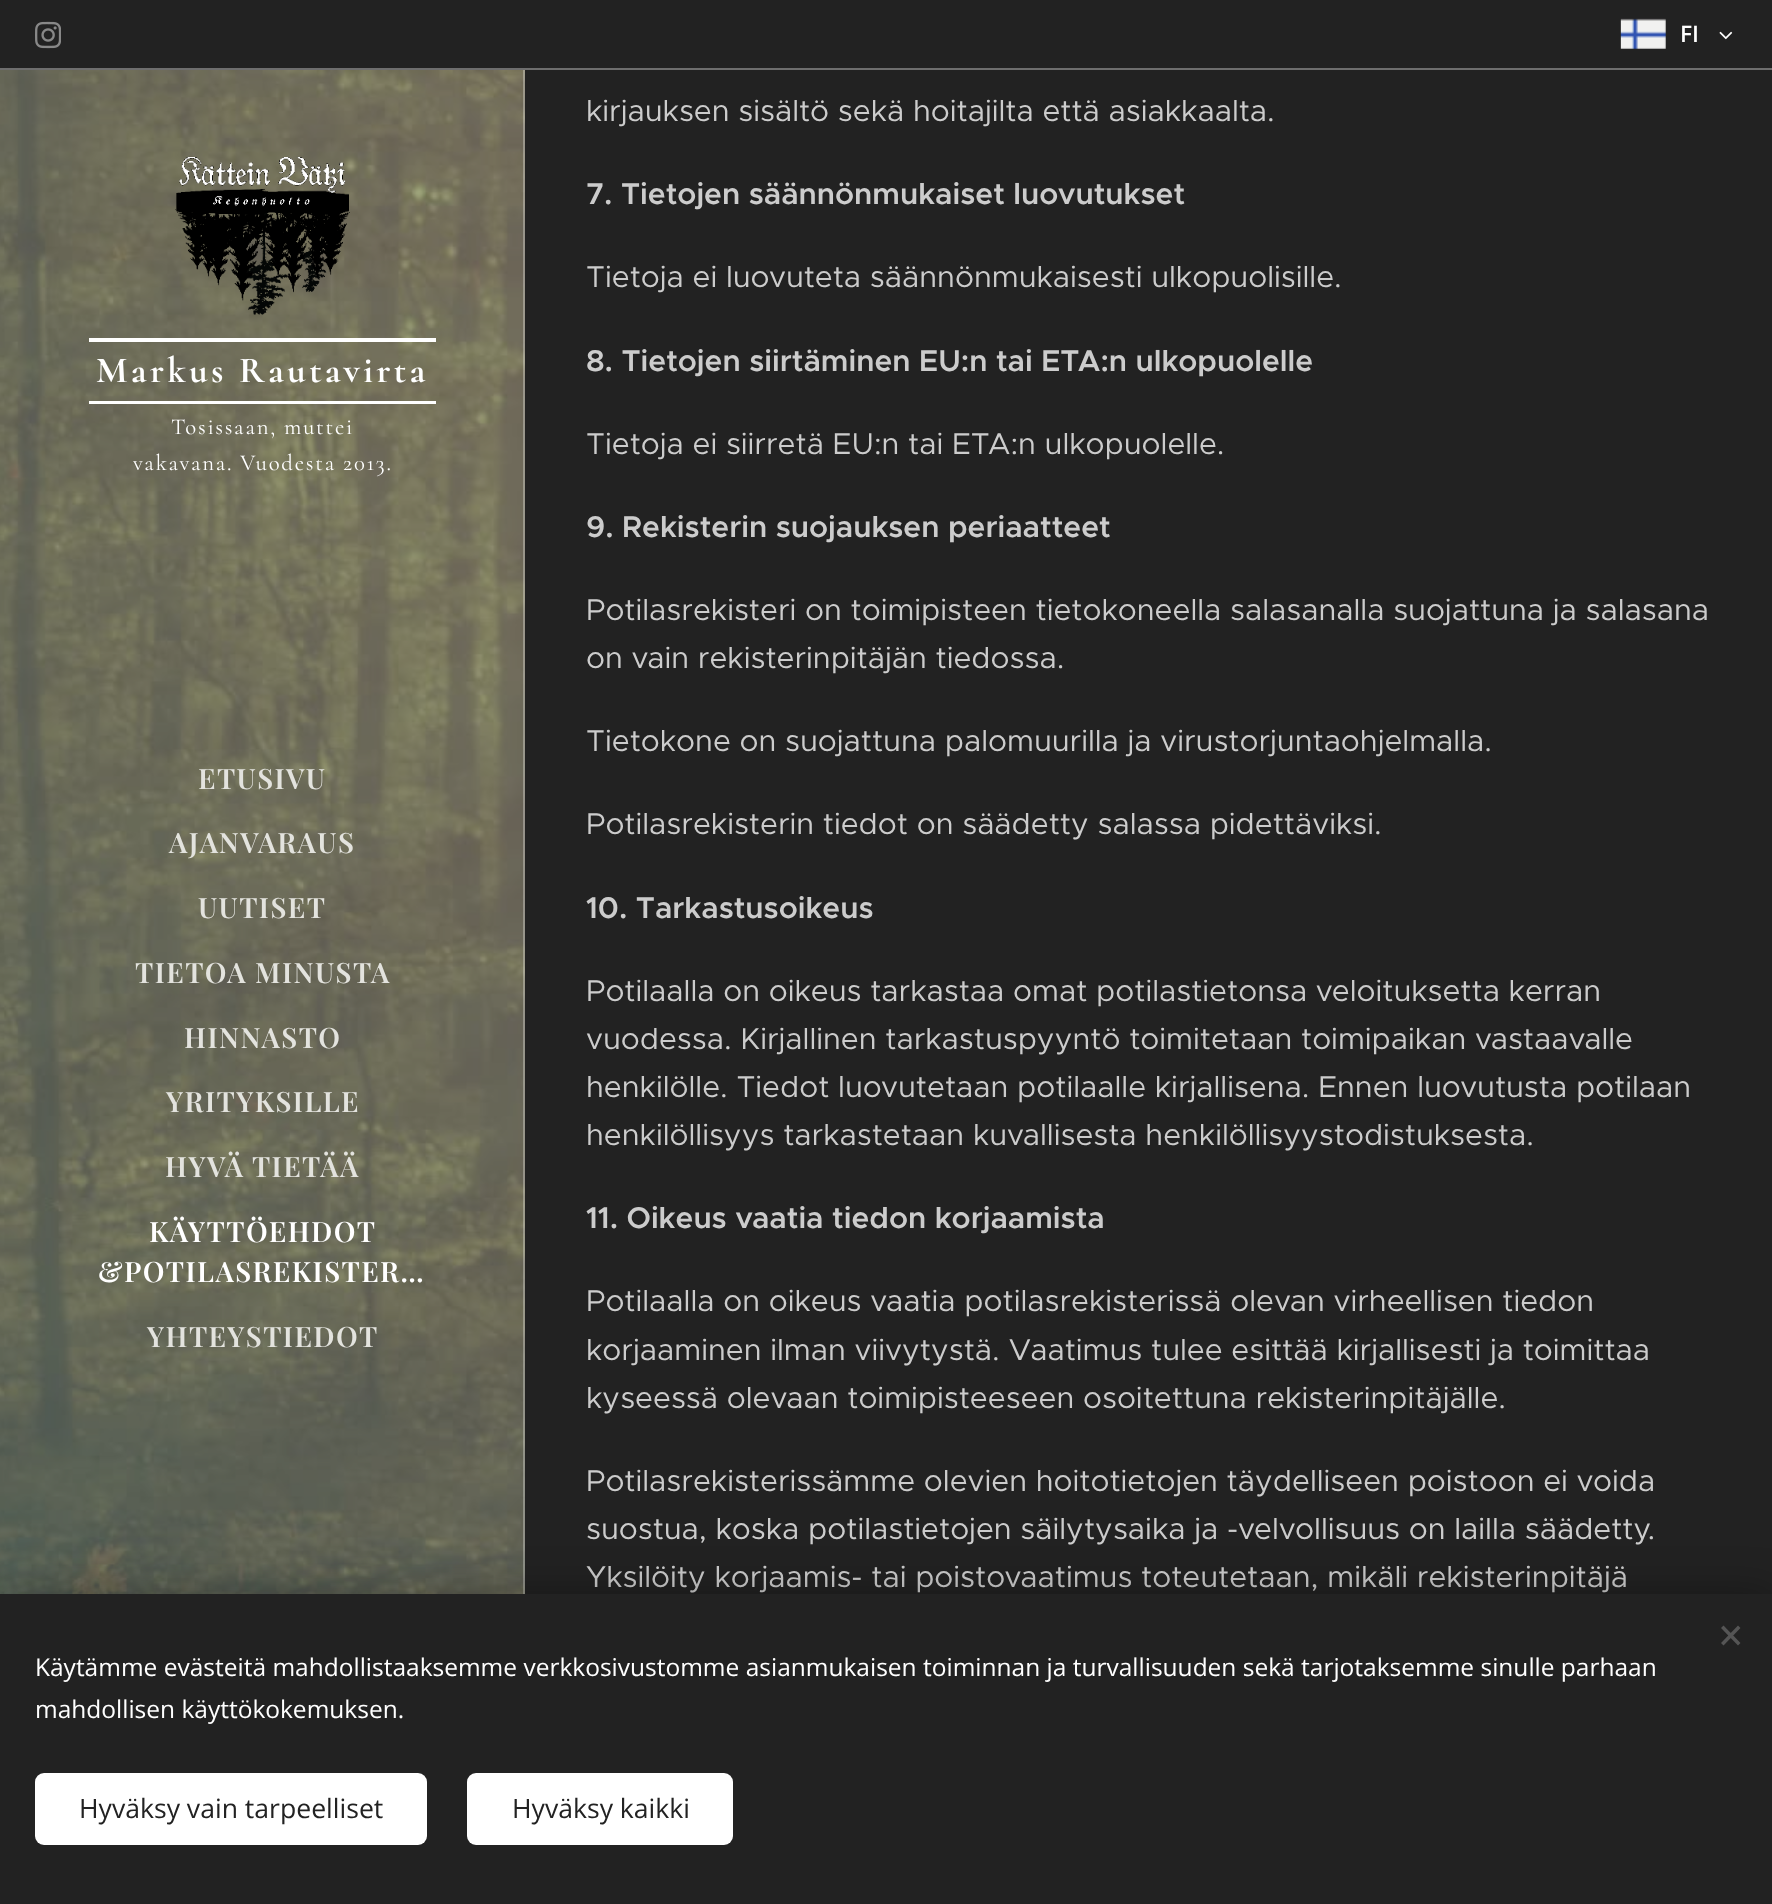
<!DOCTYPE html>
<meta charset="utf-8">
<style>body { margin: 0 } canvas { display: block }</style>
<canvas id="canvas" width="1772" height="1904"></canvas>
<script type="module">
  const canvas = document.getElementById("canvas");
  const ctx = canvas.getContext("2d");
  ctx.miterLimit = 4;
  ctx.fontKerning = "normal";
  async function loadImage(src) {
    const img = new Image();
    img.src = src;
    await img.decode();
    return img;
  }

  ctx.fillStyle = "#222222";
  ctx.fillRect(0, 0, 1772, 1904);
  ctx.drawImage(await loadImage("img1.png"), 35, 21, 26, 28);
  ctx.drawImage(await loadImage("img2.png"), 1620, 18, 46, 31);
  ctx.font = "600 22.75px Open Sans";
  ctx.fillStyle = "#ffffff";
  ctx.fillText("FI", 1680, 42);
  ctx.drawImage(await loadImage("img3.png"), 1719, 31, 14, 9);
  ctx.fillStyle = "#6e6e6e";
  ctx.fillRect(0, 68, 1772, 2);
  ctx.drawImage(await loadImage("img4.png"), 0, 70, 525, 1524);
  ctx.drawImage(await loadImage("img5.png"), 175, 156, 175, 159);
  ctx.fillStyle = "#ffffff";
  ctx.fillRect(89, 338, 347, 4);
  ctx.fillRect(89, 401, 347, 3);
  ctx.letterSpacing = "3.5px";
  ctx.font = "bold 36.75px Cormorant";
  ctx.fillText("Markus Rautavirta", 96, 382);
  ctx.letterSpacing = "1.75px";
  ctx.font = "22.75px Cormorant";
  ctx.fillText("Tosissaan, muttei", 171, 434);
  ctx.fillText("vakavana. Vuodesta 2013.", 133, 470);
  ctx.letterSpacing = "1.4px";
  ctx.font = "600 28px Playfair Display";
  ctx.fillStyle = "#e3e3de";
  ctx.fillText("ETUSIVU", 198, 789);
  ctx.fillText("AJANVARAUS", 169, 853);
  ctx.fillText("UUTISET", 198, 918);
  ctx.fillText("TIETOA MINUSTA", 135, 983);
  ctx.fillText("HINNASTO", 184, 1048);
  ctx.fillText("YRITYKSILLE", 166, 1112);
  ctx.fillText("HYVÄ TIETÄÄ", 165, 1177);
  ctx.fillStyle = "#ffffff";
  ctx.fillText("KÄYTTÖEHDOT", 149, 1242);
  ctx.fillText("&POTILASREKISTER…", 98, 1282);
  ctx.fillStyle = "#e3e3de";
  ctx.fillText("YHTEYSTIEDOT", 147, 1347);
  ctx.fillStyle = "rgba(255, 255, 255, 0.3)";
  ctx.fillRect(523, 70, 2, 1524);
  ctx.letterSpacing = "0px";
  ctx.font = "30.1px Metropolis";
  ctx.fillStyle = "#cccccc";
  ctx.fillText("kirjauksen sisältö sekä hoitajilta että asiakkaalta.", 586, 121);
  ctx.font = "600 30.1px Metropolis";
  ctx.fillText("7. Tietojen säännönmukaiset luovutukset", 586, 204);
  ctx.font = "30.1px Metropolis";
  ctx.fillText("Tietoja ei luovuteta säännönmukaisesti ulkopuolisille.", 586, 287);
  ctx.font = "600 30.1px Metropolis";
  ctx.fillText("8. Tietojen siirtäminen EU:n tai ETA:n ulkopuolelle", 586, 371);
  ctx.font = "30.1px Metropolis";
  ctx.fillText("Tietoja ei siirretä EU:n tai ETA:n ulkopuolelle.", 586, 454);
  ctx.font = "600 30.1px Metropolis";
  ctx.fillText("9. Rekisterin suojauksen periaatteet", 586, 537);
  ctx.font = "30.1px Metropolis";
  ctx.fillText("Potilasrekisteri on toimipisteen tietokoneella salasanalla suojattuna ja salasana", 586, 620);
  ctx.fillText("on vain rekisterinpitäjän tiedossa.", 586, 668);
  ctx.fillText("Tietokone on suojattuna palomuurilla ja virustorjuntaohjelmalla.", 586, 751);
  ctx.fillText("Potilasrekisterin tiedot on säädetty salassa pidettäviksi.", 586, 834);
  ctx.font = "600 30.1px Metropolis";
  ctx.fillText("10. Tarkastusoikeus", 586, 918);
  ctx.font = "30.1px Metropolis";
  ctx.fillText("Potilaalla on oikeus tarkastaa omat potilastietonsa veloituksetta kerran", 586, 1001);
  ctx.fillText("vuodessa. Kirjallinen tarkastuspyyntö toimitetaan toimipaikan vastaavalle", 586, 1049);
  ctx.fillText("henkilölle. Tiedot luovutetaan potilaalle kirjallisena. Ennen luovutusta potilaan", 586, 1097);
  ctx.fillText("henkilöllisyys tarkastetaan kuvallisesta henkilöllisyystodistuksesta.", 586, 1145);
  ctx.font = "600 30.1px Metropolis";
  ctx.fillText("11. Oikeus vaatia tiedon korjaamista", 586, 1228);
  ctx.font = "30.1px Metropolis";
  ctx.fillText("Potilaalla on oikeus vaatia potilasrekisterissä olevan virheellisen tiedon", 586, 1311);
  ctx.fillText("korjaaminen ilman viivytystä. Vaatimus tulee esittää kirjallisesti ja toimittaa", 586, 1360);
  ctx.fillText("kyseessä olevaan toimipisteeseen osoitettuna rekisterinpitäjälle.", 586, 1408);
  ctx.fillText("Potilasrekisterissämme olevien hoitotietojen täydelliseen poistoon ei voida", 586, 1491);
  ctx.fillText("suostua, koska potilastietojen säilytysaika ja -velvollisuus on lailla säädetty.", 586, 1539);
  ctx.fillText("Yksilöity korjaamis- tai poistovaatimus toteutetaan, mikäli rekisterinpitäjä", 586, 1587);
  ctx.fillStyle = "rgba(0, 0, 0, 0.33)";
  ctx.filter = "blur(22px)";
  ctx.beginPath();
  ctx.rect(0, 1594, 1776, 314);
  ctx.fill();
  ctx.filter = "none";
  ctx.fillStyle = "#222222";
  ctx.fillRect(0, 1594, 1772, 310);
  ctx.fillStyle = "#555555";
  ctx.beginPath();
  ctx.moveTo(1721, 1643);
  ctx.lineTo(1738, 1625.5);
  ctx.lineTo(1740.5, 1628);
  ctx.lineTo(1723.5, 1645.5);
  ctx.closePath();
  ctx.fill();
  ctx.beginPath();
  ctx.moveTo(1723.5, 1625.5);
  ctx.lineTo(1740.5, 1643);
  ctx.lineTo(1738, 1645.5);
  ctx.lineTo(1721, 1628);
  ctx.closePath();
  ctx.fill();
  ctx.font = "24.5px Open Sans";
  ctx.fillStyle = "#ffffff";
  ctx.fillText("Käytämme evästeitä mahdollistaaksemme verkkosivustomme asianmukaisen toiminnan ja turvallisuuden sekä tarjotaksemme sinulle parhaan", 35, 1676);
  ctx.fillText("mahdollisen käyttökokemuksen.", 35, 1718);
  ctx.beginPath();
  ctx.roundRect(35, 1773, 392, 72, 9);
  ctx.fill();
  ctx.font = "26.6px Open Sans";
  ctx.fillStyle = "#222222";
  ctx.fillText("Hyväksy vain tarpeelliset", 79, 1818);
  ctx.fillStyle = "#ffffff";
  ctx.beginPath();
  ctx.roundRect(467, 1773, 266, 72, 9);
  ctx.fill();
  ctx.fillStyle = "#222222";
  ctx.fillText("Hyväksy kaikki", 512, 1818);
</script>
